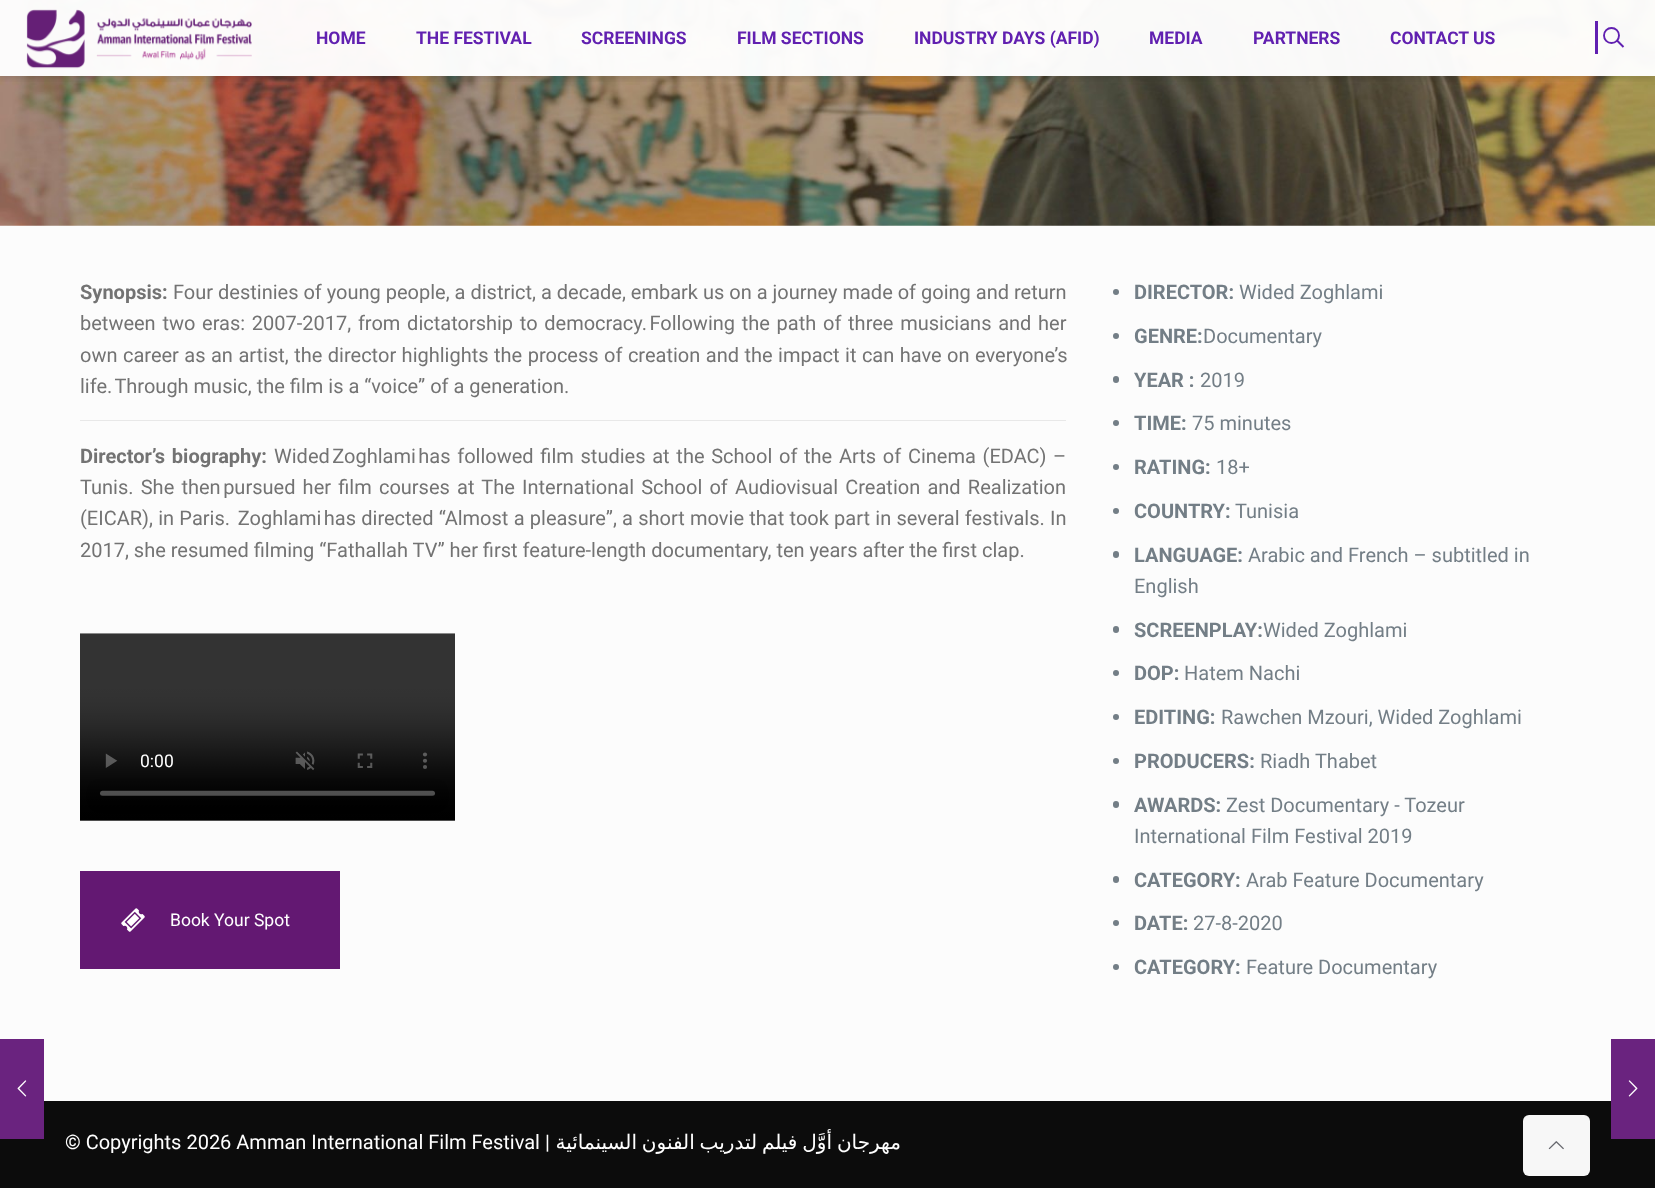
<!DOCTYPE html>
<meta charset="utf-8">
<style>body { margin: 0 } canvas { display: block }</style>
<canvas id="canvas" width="1655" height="1188"></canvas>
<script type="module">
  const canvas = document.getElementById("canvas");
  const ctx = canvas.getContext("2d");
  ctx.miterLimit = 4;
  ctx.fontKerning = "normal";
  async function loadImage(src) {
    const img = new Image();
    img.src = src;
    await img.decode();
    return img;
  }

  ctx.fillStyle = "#fcfcfc";
  ctx.fillRect(0, 0, 1655, 1188);
  ctx.fillStyle = "#0c0c0c";
  ctx.fillRect(0, 1101, 1655, 87);
  ctx.fillStyle = "#6a237f";
  ctx.fillRect(0, 1039, 44, 100);
  ctx.drawImage(await loadImage("img1.png"), 17, 1080, 10, 17);
  ctx.drawImage(await loadImage("img3.png"), 0, 0, 1655, 226);
  ctx.save();
  ctx.beginPath();
  ctx.rect(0, 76, 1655, 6);
  ctx.clip();
  ctx.fillStyle = "rgba(0, 0, 0, 0.1)";
  ctx.filter = "blur(3px)";
  ctx.beginPath();
  ctx.rect(0, 3, 1655, 76);
  ctx.fill();
  ctx.filter = "none";
  ctx.restore();
  ctx.fillStyle = "rgba(255, 255, 255, 0.97)";
  ctx.fillRect(0, 0, 1655, 76);
  ctx.drawImage(await loadImage("img2.png"), 26, 9, 226, 60);
  ctx.font = "bold 17.5px Roboto";
  ctx.fillStyle = "#6120b0";
  ctx.fillText("HOME", 316, 44);
  ctx.fillText("THE FESTIVAL", 416, 44);
  ctx.fillText("SCREENINGS", 581, 44);
  ctx.fillText("FILM SECTIONS", 737, 44);
  ctx.fillText("INDUSTRY DAYS (AFID)", 914, 44);
  ctx.fillText("MEDIA", 1149, 44);
  ctx.fillText("PARTNERS", 1253, 44);
  ctx.fillText("CONTACT US", 1390, 44);
  ctx.fillStyle = "rgba(92, 25, 174, 0.97)";
  ctx.fillRect(1595, 21, 3, 33);
  ctx.beginPath();
  ctx.arc(1611.5, 35.5, 7.5, 0, Math.PI * 2);
  ctx.strokeStyle = "#6120b0";
  ctx.lineWidth = 1.9;
  ctx.stroke();
  ctx.beginPath();
  ctx.moveTo(1617, 40.5);
  ctx.lineTo(1623.5, 47);
  ctx.strokeStyle = "rgba(92, 25, 174, 0.97)";
  ctx.stroke();
  ctx.font = "bold 20px Roboto";
  ctx.fillStyle = "#737373";
  ctx.fillText("Synopsis:", 80, 299);
  ctx.font = "20px Roboto";
  ctx.fillText("Four destinies of young people, a district, a decade, embark us on a journey made of going and return", 173, 299);
  ctx.wordSpacing = "1.75px";
  ctx.fillText("between two eras: 2007-2017, from dictatorship to democracy. Following the path of three musicians and her", 80, 330);
  ctx.wordSpacing = "0.5px";
  ctx.fillText("own career as an artist, the director highlights the process of creation and the impact it can have on everyone’s", 80, 362);
  ctx.wordSpacing = "0px";
  ctx.fillText("life. Through music, the film is a “voice” of a generation.", 80, 393);
  ctx.fillStyle = "#e8e8e8";
  ctx.fillRect(80, 420, 986, 1);
  ctx.wordSpacing = "2px";
  ctx.font = "bold 20px Roboto";
  ctx.fillStyle = "#737373";
  ctx.fillText("Director’s biography:", 80, 463);
  ctx.wordSpacing = "1.75px";
  ctx.font = "20px Roboto";
  ctx.fillText("Wided Zoghlami has followed film studies at the School of the Arts of Cinema (EDAC) –", 274, 463);
  ctx.wordSpacing = "2.25px";
  ctx.fillText("Tunis. She then pursued her film courses at The International School of Audiovisual Creation and Realization", 80, 494);
  ctx.wordSpacing = "0.3px";
  ctx.fillText("(EICAR), in Paris.  Zoghlami has directed “Almost a pleasure”, a short movie that took part in several festivals. In", 80, 525);
  ctx.wordSpacing = "0px";
  ctx.fillText("2017, she resumed filming “Fathallah TV” her first feature-length documentary, ten years after the first clap.", 80, 557);
  ctx.drawImage(await loadImage("img4.png"), 80, 633, 375, 188);
  ctx.fillStyle = "#631872";
  ctx.fillRect(80, 871, 260, 98);
  ctx.drawImage(await loadImage("img5.png"), 121, 908, 24, 24);
  ctx.font = "17.5px Roboto";
  ctx.fillStyle = "#ffffff";
  ctx.fillText("Book Your Spot", 170, 926);
  ctx.fillStyle = "#737e86";
  ctx.beginPath();
  ctx.arc(1116, 292, 3, 0, Math.PI * 2);
  ctx.fill();
  ctx.font = "bold 20px Roboto";
  ctx.fillText("DIRECTOR:", 1134, 299);
  ctx.font = "20px Roboto";
  ctx.fillText("Wided Zoghlami", 1239, 299);
  ctx.beginPath();
  ctx.arc(1116, 336, 3, 0, Math.PI * 2);
  ctx.fill();
  ctx.font = "bold 20px Roboto";
  ctx.fillText("GENRE:", 1134, 343);
  ctx.font = "20px Roboto";
  ctx.fillText("Documentary", 1203, 343);
  ctx.beginPath();
  ctx.roundRect(1113, 376, 6, 7, 3);
  ctx.fill();
  ctx.font = "bold 20px Roboto";
  ctx.fillText("YEAR :", 1134, 387);
  ctx.font = "20px Roboto";
  ctx.fillText("2019", 1200, 387);
  ctx.beginPath();
  ctx.arc(1116, 423, 3, 0, Math.PI * 2);
  ctx.fill();
  ctx.font = "bold 20px Roboto";
  ctx.fillText("TIME:", 1134, 430);
  ctx.font = "20px Roboto";
  ctx.fillText("75 minutes", 1192, 430);
  ctx.beginPath();
  ctx.arc(1116, 467, 3, 0, Math.PI * 2);
  ctx.fill();
  ctx.font = "bold 20px Roboto";
  ctx.fillText("RATING:", 1134, 474);
  ctx.font = "20px Roboto";
  ctx.fillText("18+", 1216, 474);
  ctx.beginPath();
  ctx.arc(1116, 511, 3, 0, Math.PI * 2);
  ctx.fill();
  ctx.font = "bold 20px Roboto";
  ctx.fillText("COUNTRY:", 1134, 518);
  ctx.font = "20px Roboto";
  ctx.fillText("Tunisia", 1235, 518);
  ctx.beginPath();
  ctx.roundRect(1113, 551, 6, 7, 3);
  ctx.fill();
  ctx.font = "bold 20px Roboto";
  ctx.fillText("LANGUAGE:", 1134, 562);
  ctx.font = "20px Roboto";
  ctx.fillText("Arabic and French – subtitled in", 1248, 562);
  ctx.fillText("English", 1134, 593);
  ctx.beginPath();
  ctx.roundRect(1113, 626, 6, 7, 3);
  ctx.fill();
  ctx.font = "bold 20px Roboto";
  ctx.fillText("SCREENPLAY:", 1134, 637);
  ctx.font = "20px Roboto";
  ctx.fillText("Wided Zoghlami", 1263, 637);
  ctx.beginPath();
  ctx.arc(1116, 673, 3, 0, Math.PI * 2);
  ctx.fill();
  ctx.font = "bold 20px Roboto";
  ctx.fillText("DOP:", 1134, 680);
  ctx.font = "20px Roboto";
  ctx.fillText("Hatem Nachi", 1184, 680);
  ctx.beginPath();
  ctx.arc(1116, 717, 3, 0, Math.PI * 2);
  ctx.fill();
  ctx.font = "bold 20px Roboto";
  ctx.fillText("EDITING:", 1134, 724);
  ctx.font = "20px Roboto";
  ctx.fillText("Rawchen Mzouri, Wided Zoghlami", 1221, 724);
  ctx.beginPath();
  ctx.arc(1116, 761, 3, 0, Math.PI * 2);
  ctx.fill();
  ctx.font = "bold 20px Roboto";
  ctx.fillText("PRODUCERS:", 1134, 768);
  ctx.font = "20px Roboto";
  ctx.fillText("Riadh Thabet", 1260, 768);
  ctx.beginPath();
  ctx.roundRect(1113, 801, 6, 7, 3);
  ctx.fill();
  ctx.font = "bold 20px Roboto";
  ctx.fillText("AWARDS:", 1134, 812);
  ctx.font = "20px Roboto";
  ctx.fillText("Zest Documentary - Tozeur", 1226, 812);
  ctx.fillText("International Film Festival 2019", 1134, 843);
  ctx.beginPath();
  ctx.roundRect(1113, 876, 6, 7, 3);
  ctx.fill();
  ctx.font = "bold 20px Roboto";
  ctx.fillText("CATEGORY:", 1134, 887);
  ctx.font = "20px Roboto";
  ctx.fillText("Arab Feature Documentary", 1246, 887);
  ctx.beginPath();
  ctx.arc(1116, 923, 3, 0, Math.PI * 2);
  ctx.fill();
  ctx.font = "bold 20px Roboto";
  ctx.fillText("DATE:", 1134, 930);
  ctx.font = "20px Roboto";
  ctx.fillText("27-8-2020", 1193, 930);
  ctx.beginPath();
  ctx.arc(1116, 967, 3, 0, Math.PI * 2);
  ctx.fill();
  ctx.font = "bold 20px Roboto";
  ctx.fillText("CATEGORY:", 1134, 974);
  ctx.font = "20px Roboto";
  ctx.fillText("Feature Documentary", 1246, 974);
  ctx.fillStyle = "#ffffff";
  ctx.fillText("© Copyrights 2026 Amman International Film Festival |", 65, 1149);
  ctx.wordSpacing = "-1.5px";
  ctx.direction = "rtl";
  ctx.font = "20px DejaVu Sans";
  ctx.fillText("مهرجان أوَّل فيلم لتدريب الفنون السينمائية", 901, 1149);
  ctx.fillStyle = "#f7f7f7";
  ctx.beginPath();
  ctx.roundRect(1523, 1115, 67, 61, 6);
  ctx.fill();
  ctx.drawImage(await loadImage("img6.png"), 1548, 1141, 16, 9);
  ctx.fillStyle = "#6a237f";
  ctx.fillRect(1611, 1039, 44, 100);
  ctx.drawImage(await loadImage("img7.png"), 1628, 1080, 10, 17);
</script>
